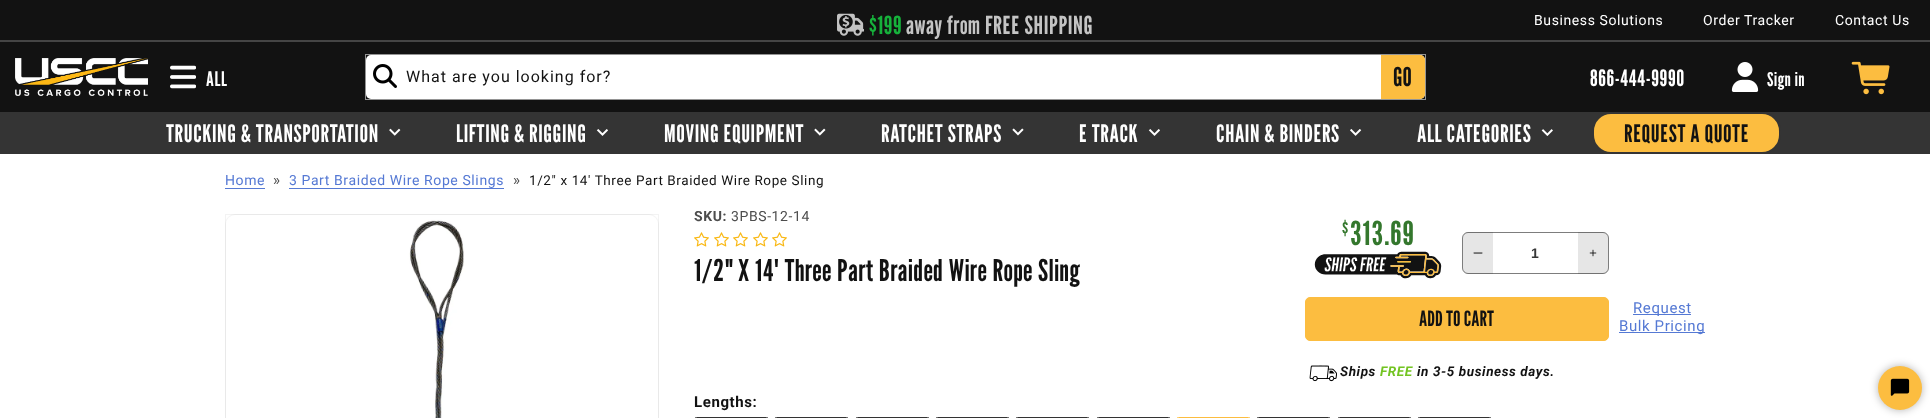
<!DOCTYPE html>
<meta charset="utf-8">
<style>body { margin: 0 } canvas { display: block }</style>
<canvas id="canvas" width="1930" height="418"></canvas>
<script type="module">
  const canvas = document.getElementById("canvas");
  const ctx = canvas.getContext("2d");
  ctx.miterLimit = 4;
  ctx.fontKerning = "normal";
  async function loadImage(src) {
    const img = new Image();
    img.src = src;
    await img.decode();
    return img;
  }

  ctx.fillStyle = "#ffffff";
  ctx.fillRect(0, 0, 1930, 418);
  ctx.fillStyle = "#121212";
  ctx.fillRect(0, 0, 1930, 112);
  ctx.fillStyle = "#454545";
  ctx.fillRect(0, 40, 1930, 2);
  ctx.drawImage(await loadImage("img1.png"), 837, 13, 27, 23);
  ctx.letterSpacing = "0.6px";
  ctx.font = "25px League Gothic";
  ctx.fillStyle = "#16b13b";
  ctx.fillText("$199", 869, 34);
  ctx.fillStyle = "#c4c4c4";
  ctx.fillText("away from FREE SHIPPING", 906, 34);
  ctx.font = "14px Roboto";
  ctx.fillStyle = "#ffffff";
  ctx.fillText("Business Solutions", 1534, 25);
  ctx.fillText("Order Tracker", 1703, 25);
  ctx.fillText("Contact Us", 1835, 25);
  ctx.drawImage(await loadImage("img2.png"), 15, 58, 133, 38);
  ctx.drawImage(await loadImage("img3.png"), 170, 65, 26, 24);
  ctx.font = "20px League Gothic";
  ctx.fillText("ALL", 206, 86);
  ctx.beginPath();
  ctx.roundRect(366, 55, 1059, 44, 5);
  ctx.fill();
  ctx.fillStyle = "#fcbd40";
  ctx.beginPath();
  ctx.roundRect(1381, 55, 44, 44, [0, 5, 5, 0]);
  ctx.fill();
  ctx.strokeStyle = "#949494";
  ctx.strokeRect(365.5, 54.5, 1060, 45);
  ctx.drawImage(await loadImage("img4.png"), 373, 64, 24, 24);
  ctx.letterSpacing = "1px";
  ctx.font = "16px Roboto";
  ctx.fillStyle = "#121212";
  ctx.fillText("What are you looking for?", 406, 82);
  ctx.letterSpacing = "0px";
  ctx.font = "26px League Gothic";
  ctx.fillText("GO", 1393, 86);
  ctx.letterSpacing = "0.6px";
  ctx.font = "22.5px League Gothic";
  ctx.fillStyle = "#ffffff";
  ctx.fillText("866-444-9990", 1590, 86);
  ctx.drawImage(await loadImage("img5.png"), 1731, 62, 28, 30);
  ctx.font = "19px League Gothic";
  ctx.fillText("Sign in", 1767, 86);
  ctx.drawImage(await loadImage("img6.png"), 1851, 61, 39, 34);
  ctx.fillStyle = "#343434";
  ctx.fillRect(0, 112, 1930, 42);
  ctx.font = "24px League Gothic";
  ctx.fillStyle = "#ffffff";
  ctx.fillText("TRUCKING & TRANSPORTATION", 166, 142);
  ctx.drawImage(await loadImage("img7.png"), 389, 128, 12, 8);
  ctx.fillText("LIFTING & RIGGING", 456, 142);
  ctx.drawImage(await loadImage("img8.png"), 596, 129, 12, 7);
  ctx.fillText("MOVING EQUIPMENT", 664, 142);
  ctx.drawImage(await loadImage("img9.png"), 814, 128, 12, 8);
  ctx.fillText("RATCHET STRAPS", 881, 142);
  ctx.drawImage(await loadImage("img10.png"), 1012, 128, 12, 8);
  ctx.fillText("E TRACK", 1079, 142);
  ctx.drawImage(await loadImage("img8.png"), 1148, 129, 12, 7);
  ctx.fillText("CHAIN & BINDERS", 1216, 142);
  ctx.drawImage(await loadImage("img11.png"), 1350, 129, 12, 7);
  ctx.fillText("ALL CATEGORIES", 1417, 142);
  ctx.drawImage(await loadImage("img12.png"), 1541, 129, 12, 7);
  ctx.fillStyle = "#fcbd40";
  ctx.beginPath();
  ctx.roundRect(1593, 113, 187, 40, 18);
  ctx.fill();
  ctx.strokeStyle = "#343434";
  ctx.lineWidth = 2;
  ctx.stroke();
  ctx.fillStyle = "#121212";
  ctx.fillText("REQUEST A QUOTE", 1624, 142);
  ctx.font = "14px Roboto";
  ctx.fillStyle = "#5579d4";
  ctx.fillText("Home", 225, 185);
  ctx.fillRect(225, 188, 40, 1);
  ctx.font = "15px Roboto";
  ctx.fillStyle = "#4d4d4d";
  ctx.fillText("»", 273, 185);
  ctx.font = "14px Roboto";
  ctx.fillStyle = "#5579d4";
  ctx.fillText("3 Part Braided Wire Rope Slings", 289, 185);
  ctx.fillRect(289, 188, 215, 1);
  ctx.font = "15px Roboto";
  ctx.fillStyle = "#4d4d4d";
  ctx.fillText("»", 513, 185);
  ctx.font = "13.5px Roboto";
  ctx.fillStyle = "#121212";
  ctx.fillText("1/2\" x 14' Three Part Braided Wire Rope Sling", 529, 185);
  ctx.fillStyle = "#f5f5f5";
  ctx.beginPath();
  ctx.roundRect(225, 214, 434, 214, 10);
  ctx.fill();
  ctx.strokeStyle = "rgba(18, 18, 18, 0.05)";
  ctx.lineWidth = 1;
  ctx.strokeRect(225.5, 214.5, 433, 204);
  ctx.drawImage(await loadImage("img13.png"), 226, 215, 432, 203);
  ctx.font = "bold 14px Roboto";
  ctx.fillStyle = "#4d4d4d";
  ctx.fillText("SKU:", 694, 221);
  ctx.font = "14px Roboto";
  ctx.fillText("3PBS-12-14", 731, 221);
  ctx.drawImage(await loadImage("img14.png"), 694, 232, 15, 15);
  ctx.drawImage(await loadImage("img14.png"), 714, 232, 15, 15);
  ctx.drawImage(await loadImage("img14.png"), 733, 232, 15, 15);
  ctx.drawImage(await loadImage("img14.png"), 753, 232, 15, 15);
  ctx.drawImage(await loadImage("img14.png"), 772, 232, 15, 15);
  ctx.font = "30px League Gothic";
  ctx.fillStyle = "#121212";
  ctx.fillText("1/2\" X 14' Three Part Braided Wire Rope Sling", 694, 281);
  ctx.letterSpacing = "1px";
  ctx.font = "20px League Gothic";
  ctx.fillStyle = "#34772d";
  ctx.fillText("$", 1342, 235);
  ctx.font = "33px League Gothic";
  ctx.fillText("313.69", 1350, 245);
  ctx.drawImage(await loadImage("img15.png"), 1314, 251, 128, 28);
  ctx.fillStyle = "#e6e6e6";
  ctx.beginPath();
  ctx.roundRect(1463, 232, 30, 42, [5, 0, 0, 5]);
  ctx.fill();
  ctx.drawImage(await loadImage("img16.png"), 1473, 252, 10, 2);
  ctx.beginPath();
  ctx.roundRect(1578, 232, 30, 42, [0, 5, 5, 0]);
  ctx.fill();
  ctx.drawImage(await loadImage("img17.png"), 1589, 249, 8, 8);
  ctx.beginPath();
  ctx.roundRect(1462.5, 232.5, 146, 41, 5.5);
  ctx.strokeStyle = "rgba(18, 18, 18, 0.55)";
  ctx.stroke();
  ctx.letterSpacing = "0px";
  ctx.font = "bold 14px Liberation Sans";
  ctx.fillStyle = "#363636";
  ctx.fillText("1", 1531, 258);
  ctx.fillStyle = "#fcbd40";
  ctx.beginPath();
  ctx.roundRect(1305.5, 297.5, 303, 43, 4.5);
  ctx.fill();
  ctx.strokeStyle = "#fcbd40";
  ctx.stroke();
  ctx.font = "21px League Gothic";
  ctx.fillStyle = "#121212";
  ctx.fillText("ADD TO CART", 1419, 326);
  ctx.fillStyle = "#5579d4";
  ctx.fillRect(1633, 314, 58, 1);
  ctx.letterSpacing = "0.6px";
  ctx.font = "15px Roboto";
  ctx.fillText("Request", 1633, 313);
  ctx.fillRect(1619, 332, 86, 1);
  ctx.fillText("Bulk Pricing", 1619, 331);
  ctx.drawImage(await loadImage("img18.png"), 1309, 365, 28, 17);
  ctx.font = "italic bold 13.5px Roboto";
  ctx.fillStyle = "#121212";
  ctx.fillText("Ships", 1340, 376);
  ctx.fillStyle = "#73c422";
  ctx.fillText("FREE", 1380, 376);
  ctx.fillStyle = "#121212";
  ctx.fillText("in 3-5 business days.", 1417, 376);
  ctx.font = "bold 15px Roboto";
  ctx.fillText("Lengths:", 694, 407);
  ctx.beginPath();
  ctx.roundRect(694.5, 417.5, 74, 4, 2.5);
  ctx.strokeStyle = "#333333";
  ctx.stroke();
  ctx.beginPath();
  ctx.roundRect(774.5, 417.5, 74, 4, 2.5);
  ctx.stroke();
  ctx.beginPath();
  ctx.roundRect(855.5, 417.5, 74, 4, 2.5);
  ctx.stroke();
  ctx.beginPath();
  ctx.roundRect(935.5, 417.5, 74, 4, 2.5);
  ctx.stroke();
  ctx.beginPath();
  ctx.roundRect(1015.5, 417.5, 74, 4, 2.5);
  ctx.stroke();
  ctx.beginPath();
  ctx.roundRect(1096.5, 417.5, 74, 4, 2.5);
  ctx.stroke();
  ctx.beginPath();
  ctx.roundRect(1176.5, 417.5, 74, 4, 2.5);
  ctx.strokeStyle = "#fcbd40";
  ctx.stroke();
  ctx.beginPath();
  ctx.roundRect(1256.5, 417.5, 74, 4, 2.5);
  ctx.strokeStyle = "#333333";
  ctx.stroke();
  ctx.beginPath();
  ctx.roundRect(1337.5, 417.5, 74, 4, 2.5);
  ctx.stroke();
  ctx.beginPath();
  ctx.roundRect(1417.5, 417.5, 74, 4, 2.5);
  ctx.stroke();
  ctx.fillStyle = "rgba(0, 0, 0, 0.3)";
  ctx.filter = "blur(4px)";
  ctx.beginPath();
  ctx.roundRect(1878, 366, 44, 44, 22);
  ctx.fill();
  ctx.filter = "none";
  ctx.fillStyle = "#fcbd40";
  ctx.beginPath();
  ctx.arc(1900, 388, 22, 0, Math.PI * 2);
  ctx.fill();
  ctx.drawImage(await loadImage("img19.png"), 1890, 378, 20, 18);
</script>
